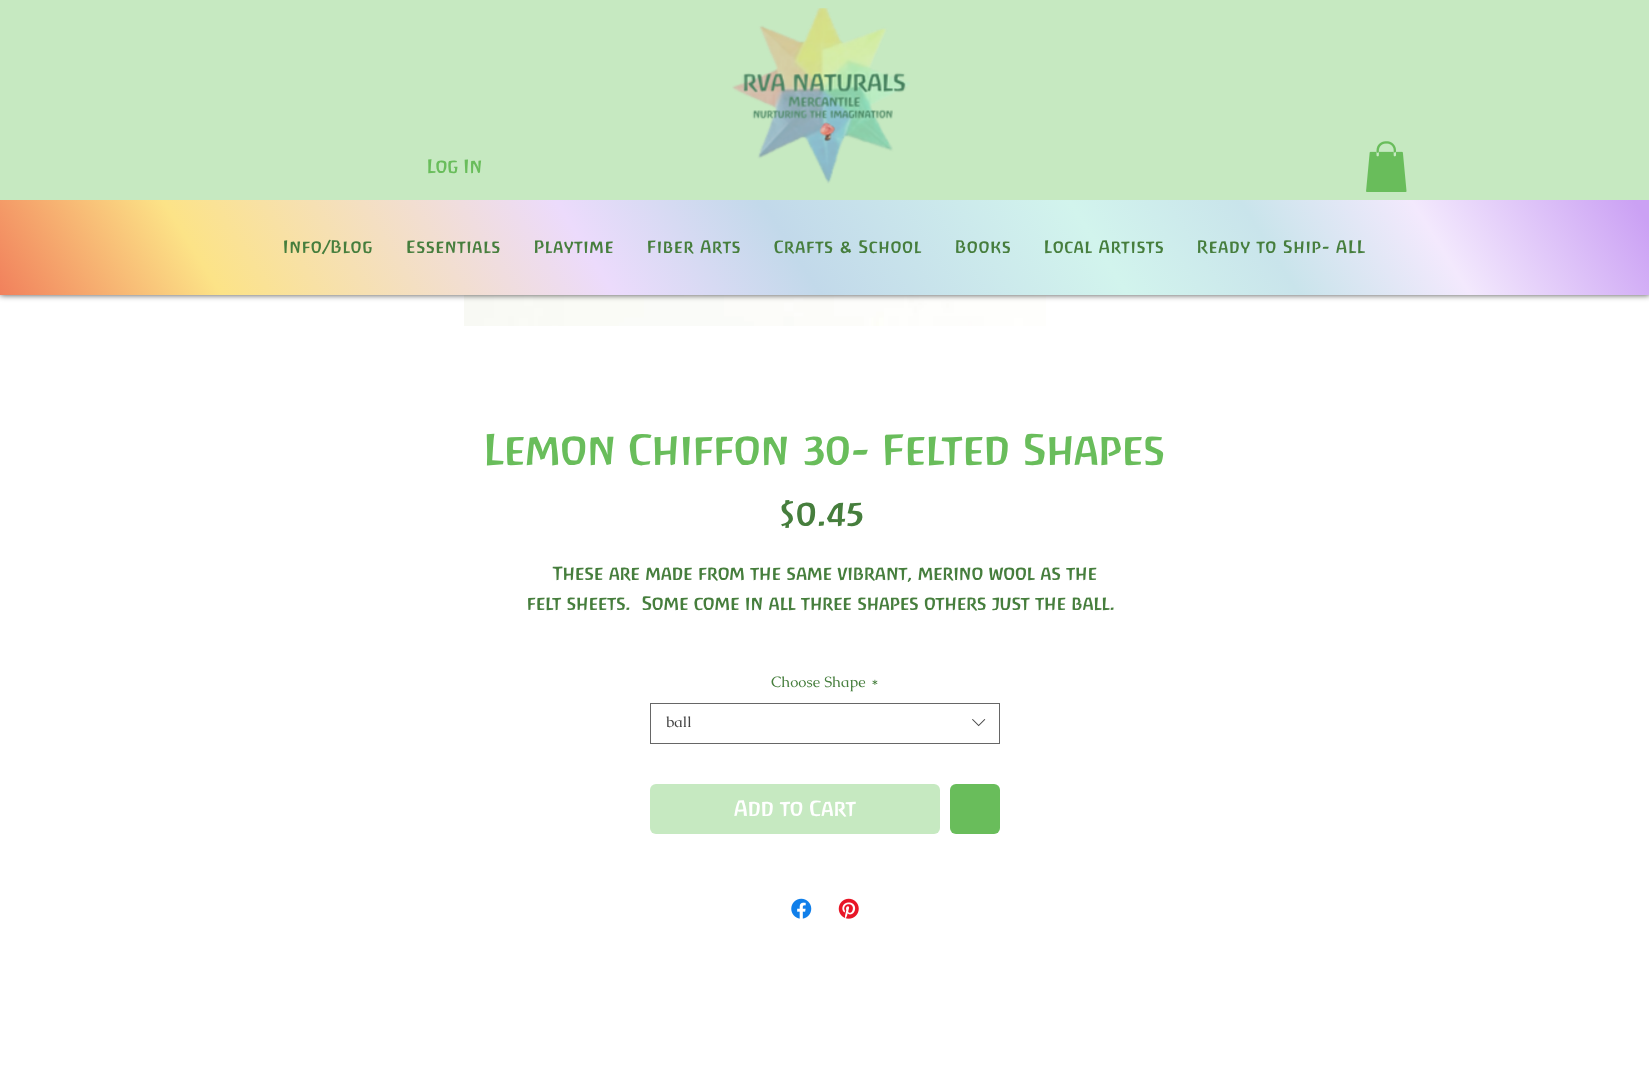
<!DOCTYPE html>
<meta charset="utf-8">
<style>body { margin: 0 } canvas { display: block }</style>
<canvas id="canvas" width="1649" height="1071"></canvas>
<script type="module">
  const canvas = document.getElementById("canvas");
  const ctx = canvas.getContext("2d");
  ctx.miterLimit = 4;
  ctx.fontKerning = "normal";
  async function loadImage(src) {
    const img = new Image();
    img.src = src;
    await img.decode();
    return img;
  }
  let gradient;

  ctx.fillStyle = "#ffffff";
  ctx.fillRect(0, 0, 1649, 1071);
  ctx.drawImage(await loadImage("img3.png"), 464, 295, 582, 31);
  ctx.fillStyle = "rgba(0, 0, 0, 0.7)";
  ctx.filter = "blur(3px)";
  ctx.beginPath();
  ctx.rect(0, 0, 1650, 295);
  ctx.fill();
  ctx.filter = "none";
  ctx.fillStyle = "#c6e9c1";
  ctx.fillRect(0, 0, 1649, 200);
  ctx.font = "bold 17.5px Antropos";
  ctx.fillStyle = "#69bd5b";
  ctx.fillText("Log In", 427, 173);
  ctx.drawImage(await loadImage("img1.png"), 732, 8, 178, 176);
  ctx.drawImage(await loadImage("img2.png"), 1366, 141, 41, 51);
  gradient = ctx.createLinearGradient(210, 632, 1440, -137);
  gradient.addColorStop(0, "#f1805c");
  gradient.addColorStop(0.13, "#fce387");
  gradient.addColorStop(0.36, "#ecdbfc");
  gradient.addColorStop(0.48, "#c2d9ea");
  gradient.addColorStop(0.66, "#d2f4ed");
  gradient.addColorStop(0.76, "#c9e4eb");
  gradient.addColorStop(0.86, "#f3e9fd");
  gradient.addColorStop(0.99, "#cba1f4");
  ctx.fillStyle = gradient;
  ctx.fillRect(0, 200, 1649, 95);
  ctx.letterSpacing = "0.8px";
  ctx.font = "bold 16.25px Antropos";
  ctx.fillStyle = "#467e3d";
  ctx.fillText("Info/Blog", 283, 253);
  ctx.fillText("Essentials", 406, 253);
  ctx.fillText("Playtime", 534, 253);
  ctx.fillText("Fiber Arts", 647, 253);
  ctx.fillText("Crafts & School", 774, 253);
  ctx.fillText("Books", 955, 253);
  ctx.fillText("Local Artists", 1044, 253);
  ctx.fillText("Ready to Ship- ALL", 1197, 253);
  ctx.letterSpacing = "0px";
  ctx.font = "bold 40px Antropos";
  ctx.fillStyle = "#69bd5b";
  ctx.fillText("Lemon Chiffon 30- Felted Shapes", 484, 465);
  ctx.font = "bold 32.5px Antropos";
  ctx.fillStyle = "#467e3d";
  ctx.fillText("$0.45", 779, 526);
  ctx.font = "bold 17.5px Antropos";
  ctx.fillText("These are made from the same vibrant, merino wool as the", 553, 580);
  ctx.fillText("felt sheets.  Some come in all three shapes others just the ball.", 527, 610);
  ctx.font = "15px Caudex";
  ctx.fillText("Choose Shape", 771, 687);
  ctx.fillText("*", 871, 687);
  ctx.strokeStyle = "#666666";
  ctx.strokeRect(650.5, 703.5, 349, 40);
  ctx.fillStyle = "#444444";
  ctx.fillText("ball", 666, 727);
  ctx.drawImage(await loadImage("img4.png"), 972, 719, 14, 8);
  ctx.fillStyle = "#c6e9c1";
  ctx.beginPath();
  ctx.roundRect(650, 784, 290, 50, 6);
  ctx.fill();
  ctx.font = "bold 20px Antropos";
  ctx.fillStyle = "#ffffff";
  ctx.fillText("Add to Cart", 734, 816);
  ctx.fillStyle = "#69bd5b";
  ctx.beginPath();
  ctx.roundRect(950, 784, 50, 50, 6);
  ctx.fill();
  ctx.drawImage(await loadImage("img5.png"), 791, 898, 21, 21);
  ctx.drawImage(await loadImage("img6.png"), 838, 898, 21, 21);
</script>
